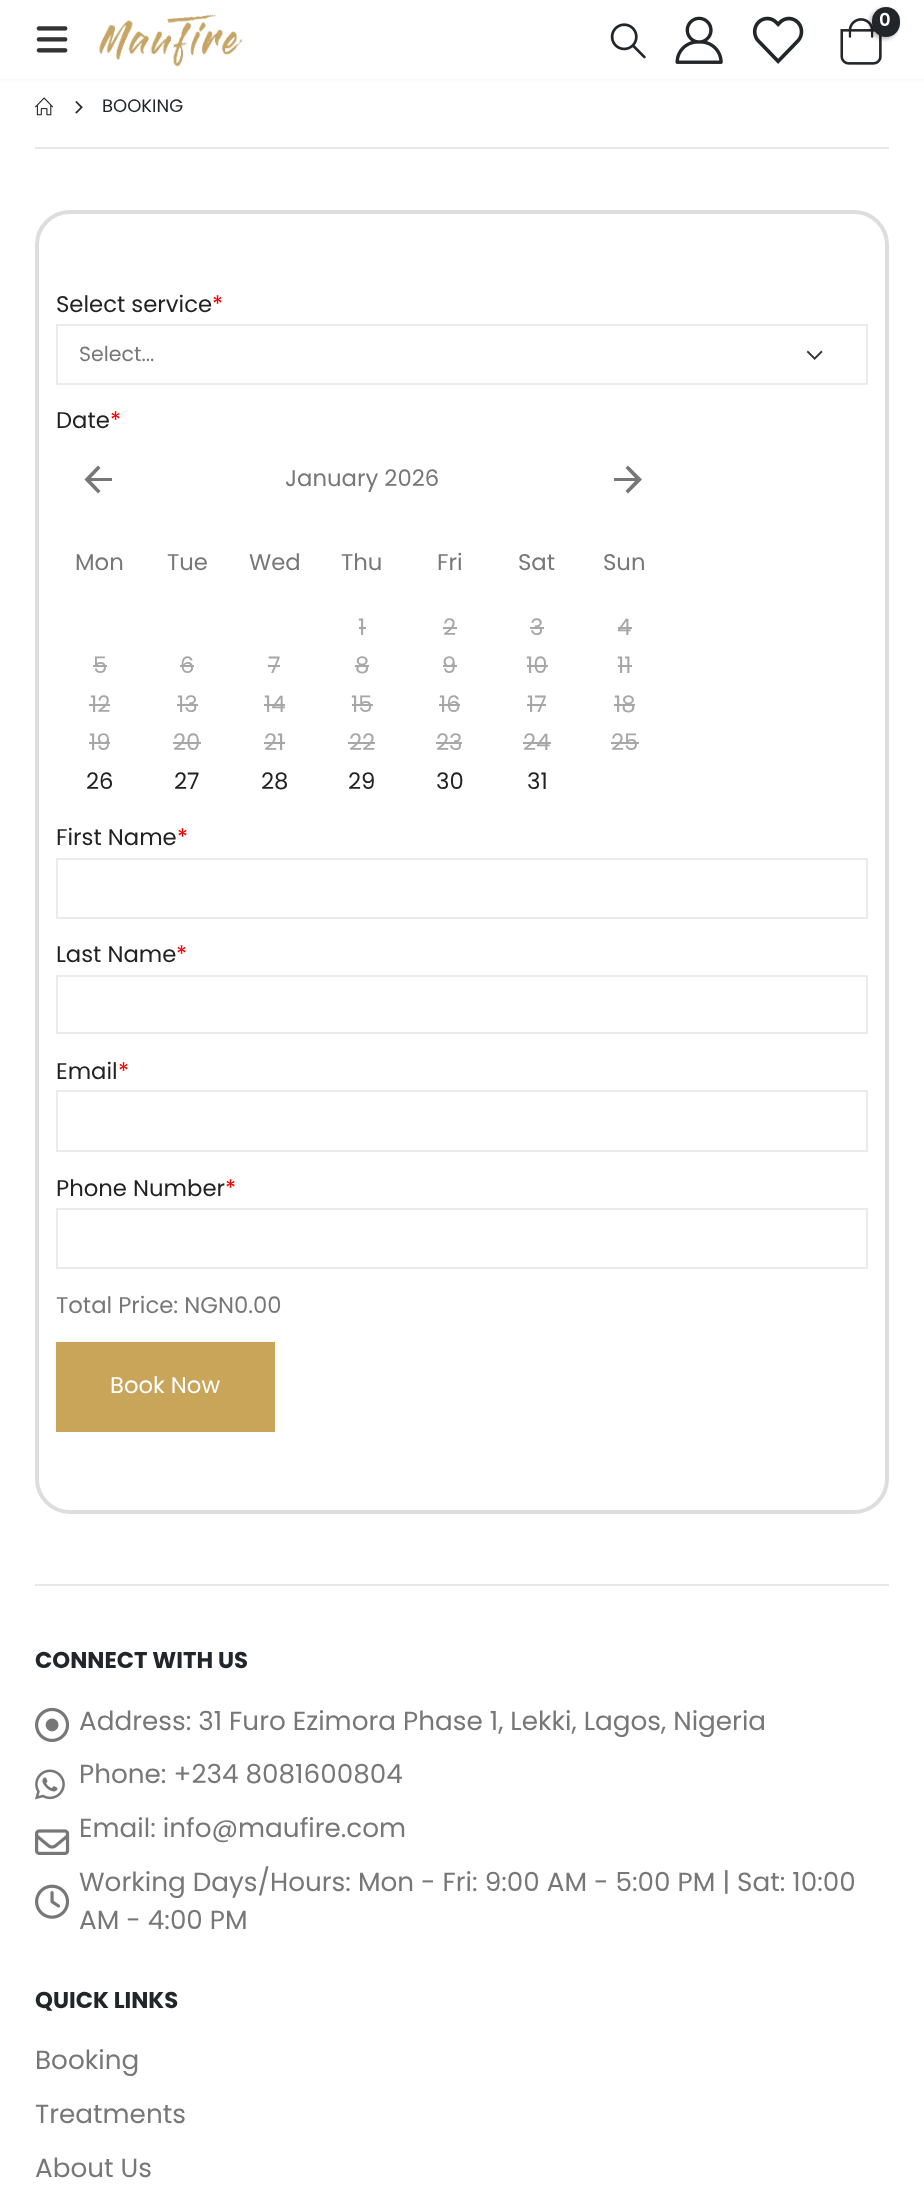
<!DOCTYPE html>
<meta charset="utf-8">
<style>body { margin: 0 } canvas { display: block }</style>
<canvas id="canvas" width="924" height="2186"></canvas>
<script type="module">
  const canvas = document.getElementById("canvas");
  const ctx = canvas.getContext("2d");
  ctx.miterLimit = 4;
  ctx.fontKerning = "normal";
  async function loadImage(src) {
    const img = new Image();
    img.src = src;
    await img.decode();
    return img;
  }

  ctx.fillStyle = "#ffffff";
  ctx.fillRect(0, 0, 924, 2186);
  ctx.fillStyle = "rgba(0, 0, 0, 0.06)";
  ctx.filter = "blur(2.5px)";
  ctx.beginPath();
  ctx.rect(0, 0, 924, 79);
  ctx.fill();
  ctx.filter = "none";
  ctx.fillStyle = "#ffffff";
  ctx.fillRect(0, 0, 924, 79);
  ctx.drawImage(await loadImage("img1.png"), 36, 26, 32, 27);
  ctx.drawImage(await loadImage("img2.png"), 99, 14, 144, 53);
  ctx.drawImage(await loadImage("img3.png"), 610, 23, 36, 36);
  ctx.drawImage(await loadImage("img4.png"), 675, 16, 48, 48);
  ctx.drawImage(await loadImage("img5.png"), 752, 16, 52, 48);
  ctx.drawImage(await loadImage("img6.png"), 840, 18, 42, 47);
  ctx.fillStyle = "rgba(0, 0, 0, 0.3)";
  ctx.filter = "blur(2px)";
  ctx.beginPath();
  ctx.roundRect(870, 9, 28, 30, 14);
  ctx.fill();
  ctx.filter = "none";
  ctx.fillStyle = "#222529";
  ctx.beginPath();
  ctx.roundRect(872, 7, 28, 30, 14);
  ctx.fill();
  ctx.font = "600 18px Poppins";
  ctx.fillStyle = "#ffffff";
  ctx.fillText("0", 879, 26);
  ctx.drawImage(await loadImage("img7.png"), 35, 97, 18, 19);
  ctx.drawImage(await loadImage("img8.png"), 75, 101, 8, 13);
  ctx.font = "18px Poppins";
  ctx.fillStyle = "#222529";
  ctx.fillText("BOOKING", 102, 112);
  ctx.fillStyle = "#e7e7e7";
  ctx.fillRect(35, 147, 854, 2);
  ctx.beginPath();
  ctx.roundRect(37, 212, 850, 1300, 33);
  ctx.strokeStyle = "#dddddd";
  ctx.lineWidth = 4;
  ctx.stroke();
  ctx.font = "22.75px Poppins";
  ctx.fillStyle = "#222222";
  ctx.fillText("Select service", 56, 312);
  ctx.fillStyle = "#f40000";
  ctx.fillText("*", 212, 312);
  ctx.drawImage(await loadImage("img9.png"), 806, 350, 17, 10);
  ctx.strokeStyle = "#ebebeb";
  ctx.lineWidth = 2;
  ctx.strokeRect(57, 325, 810, 59);
  ctx.font = "20.5px Poppins";
  ctx.fillStyle = "#777777";
  ctx.fillText("Select...", 79, 361);
  ctx.font = "22.75px Poppins";
  ctx.fillStyle = "#222222";
  ctx.fillText("Date", 56, 428);
  ctx.fillStyle = "#f40000";
  ctx.fillText("*", 110, 428);
  ctx.fillStyle = "#777777";
  ctx.beginPath();
  ctx.moveTo(112, 478);
  ctx.lineTo(112, 481);
  ctx.lineTo(91, 481);
  ctx.lineTo(100.5, 491);
  ctx.lineTo(98, 493.5);
  ctx.lineTo(84.5, 479.5);
  ctx.lineTo(98, 465.5);
  ctx.lineTo(100.5, 468);
  ctx.lineTo(91, 478);
  ctx.closePath();
  ctx.fill();
  ctx.fillText("January 2026", 285, 486);
  ctx.beginPath();
  ctx.moveTo(614, 478);
  ctx.lineTo(614, 481);
  ctx.lineTo(635, 481);
  ctx.lineTo(625.5, 491);
  ctx.lineTo(628, 493.5);
  ctx.lineTo(642, 479.5);
  ctx.lineTo(628, 465.5);
  ctx.lineTo(625.5, 468);
  ctx.lineTo(635, 478);
  ctx.closePath();
  ctx.fill();
  ctx.fillText("Mon", 75, 570);
  ctx.fillText("Tue", 167, 570);
  ctx.fillText("Wed", 249, 570);
  ctx.fillText("Thu", 341, 570);
  ctx.fillText("Fri", 437, 570);
  ctx.fillText("Sat", 518, 570);
  ctx.fillText("Sun", 603, 570);
  ctx.fillStyle = "#a7a7a7";
  ctx.fillText("1", 358, 635);
  ctx.fillRect(359, 627, 7, 2);
  ctx.fillText("2", 443, 635);
  ctx.fillRect(443, 627, 14, 2);
  ctx.fillText("3", 530, 635);
  ctx.fillRect(530, 627, 14, 2);
  ctx.fillText("4", 617, 635);
  ctx.fillRect(618, 627, 14, 2);
  ctx.fillText("5", 93, 673);
  ctx.fillRect(93, 665, 14, 2);
  ctx.fillText("6", 180, 673);
  ctx.fillRect(180, 665, 14, 2);
  ctx.fillText("7", 268, 673);
  ctx.fillRect(268, 665, 12, 2);
  ctx.fillText("8", 355, 673);
  ctx.fillRect(355, 665, 14, 2);
  ctx.fillText("9", 442, 673);
  ctx.fillRect(443, 665, 14, 2);
  ctx.fillText("10", 526, 673);
  ctx.fillRect(527, 665, 21, 2);
  ctx.fillText("11", 617, 673);
  ctx.fillRect(618, 665, 14, 2);
  ctx.fillText("12", 90, 712);
  ctx.fillRect(89, 704, 21, 2);
  ctx.fillText("13", 177, 712);
  ctx.fillRect(177, 704, 21, 2);
  ctx.fillText("14", 264, 712);
  ctx.fillRect(264, 704, 21, 2);
  ctx.fillText("15", 351, 712);
  ctx.fillRect(352, 704, 21, 2);
  ctx.fillText("16", 439, 712);
  ctx.fillRect(439, 704, 21, 2);
  ctx.fillText("17", 527, 712);
  ctx.fillRect(527, 704, 19, 2);
  ctx.fillText("18", 614, 712);
  ctx.fillRect(614, 704, 21, 2);
  ctx.fillText("19", 89, 750);
  ctx.fillRect(89, 742, 21, 2);
  ctx.fillText("20", 173, 750);
  ctx.fillRect(173, 742, 28, 2);
  ctx.fillText("21", 264, 750);
  ctx.fillRect(264, 742, 21, 2);
  ctx.fillText("22", 349, 750);
  ctx.fillRect(348, 742, 27, 2);
  ctx.fillText("23", 436, 750);
  ctx.fillRect(436, 742, 26, 2);
  ctx.fillText("24", 523, 750);
  ctx.fillRect(523, 742, 28, 2);
  ctx.fillText("25", 611, 750);
  ctx.fillRect(611, 742, 28, 2);
  ctx.fillStyle = "#222222";
  ctx.fillText("26", 86, 789);
  ctx.fillText("27", 174, 789);
  ctx.fillText("28", 261, 789);
  ctx.fillText("29", 348, 789);
  ctx.fillText("30", 436, 789);
  ctx.fillText("31", 527, 789);
  ctx.fillText("First Name", 56, 845);
  ctx.fillStyle = "#f40000";
  ctx.fillText("*", 177, 845);
  ctx.strokeRect(57, 859, 810, 59);
  ctx.fillStyle = "#222222";
  ctx.fillText("Last Name", 56, 962);
  ctx.fillStyle = "#f40000";
  ctx.fillText("*", 176, 962);
  ctx.strokeRect(57, 976, 810, 57);
  ctx.fillStyle = "#222222";
  ctx.fillText("Email", 56, 1079);
  ctx.fillStyle = "#f40000";
  ctx.fillText("*", 118, 1079);
  ctx.strokeRect(57, 1091, 810, 60);
  ctx.fillStyle = "#222222";
  ctx.fillText("Phone Number", 56, 1196);
  ctx.fillStyle = "#f40000";
  ctx.fillText("*", 225, 1196);
  ctx.strokeRect(57, 1209, 810, 59);
  ctx.fillStyle = "#777777";
  ctx.fillText("Total Price: NGN0.00", 56, 1313);
  ctx.fillStyle = "#c8a558";
  ctx.fillRect(56, 1342, 219, 90);
  ctx.fillStyle = "#ffffff";
  ctx.fillText("Book Now", 110, 1393);
  ctx.fillStyle = "#e7e7e7";
  ctx.fillRect(35, 1584, 854, 2);
  ctx.font = "bold 22.75px Poppins";
  ctx.fillStyle = "#222529";
  ctx.fillText("CONNECT WITH US", 35, 1668);
  ctx.drawImage(await loadImage("img10.png"), 35, 1707, 35, 35);
  ctx.font = "26.25px Poppins";
  ctx.fillStyle = "#777777";
  ctx.fillText("Address: 31 Furo Ezimora Phase 1, Lekki, Lagos, Nigeria", 79, 1730);
  ctx.drawImage(await loadImage("img11.png"), 35, 1769, 30, 31);
  ctx.fillText("Phone: +234 8081600804", 79, 1783);
  ctx.drawImage(await loadImage("img12.png"), 35, 1829, 35, 26);
  ctx.fillText("Email: info@maufire.com", 79, 1837);
  ctx.drawImage(await loadImage("img13.png"), 35, 1884, 35, 35);
  ctx.fillText("Working Days/Hours: Mon - Fri: 9:00 AM - 5:00 PM | Sat: 10:00", 79, 1891);
  ctx.fillText("AM - 4:00 PM", 79, 1929);
  ctx.font = "bold 22.75px Poppins";
  ctx.fillStyle = "#222529";
  ctx.fillText("QUICK LINKS", 35, 2008);
  ctx.font = "26.25px Poppins";
  ctx.fillStyle = "#777777";
  ctx.fillText("Booking", 35, 2069);
  ctx.fillText("Treatments", 35, 2123);
  ctx.fillText("About Us", 35, 2177);
</script>
